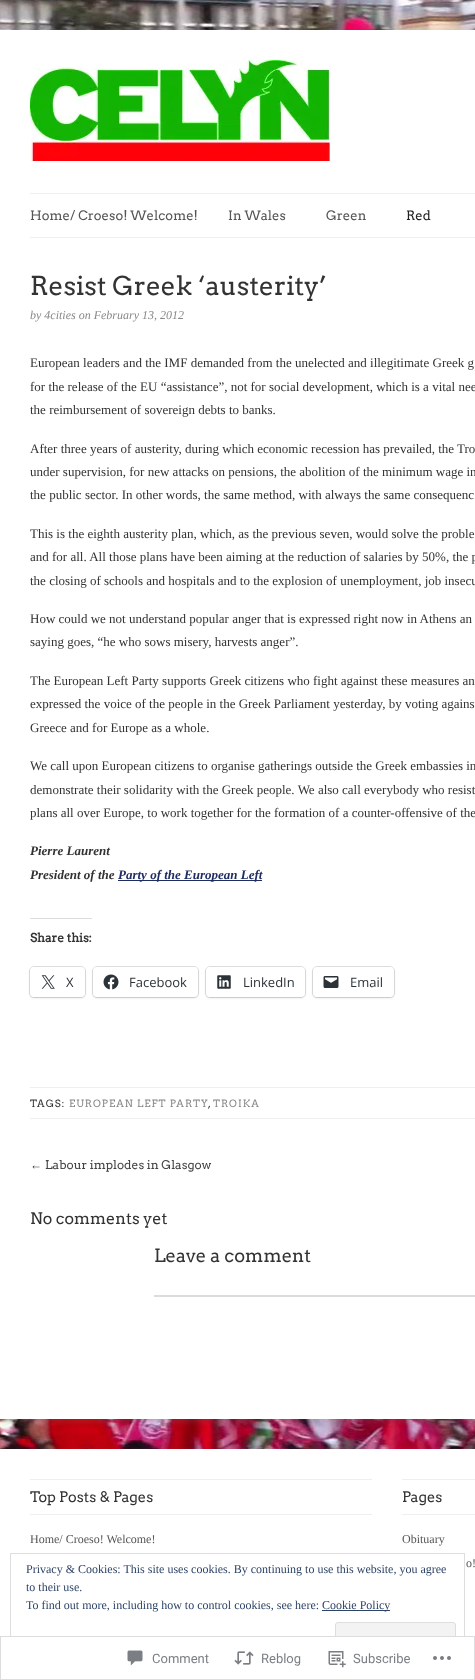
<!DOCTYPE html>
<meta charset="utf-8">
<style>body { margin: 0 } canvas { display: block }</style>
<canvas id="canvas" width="475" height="1680"></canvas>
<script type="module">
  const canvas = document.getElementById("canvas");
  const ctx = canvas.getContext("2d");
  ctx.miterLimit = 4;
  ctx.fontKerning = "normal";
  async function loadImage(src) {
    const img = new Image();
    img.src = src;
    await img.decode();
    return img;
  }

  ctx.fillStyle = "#ffffff";
  ctx.fillRect(0, 0, 475, 1680);
  ctx.drawImage(await loadImage("img1.png"), 0, 0, 475, 1449);
  ctx.fillStyle = "rgba(100, 100, 100, 0.3)";
  ctx.filter = "blur(3px)";
  ctx.beginPath();
  ctx.rect(0, 32, 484, 1389);
  ctx.fill();
  ctx.filter = "none";
  ctx.fillStyle = "#ffffff";
  ctx.fillRect(0, 30, 475, 1389);
  ctx.drawImage(await loadImage("img2.png"), 30, 60, 300, 101);
  ctx.fillStyle = "#efefef";
  ctx.fillRect(30, 193, 445, 1);
  ctx.fillRect(30, 237, 445, 1);
  ctx.font = "13px Arvo";
  ctx.fillStyle = "#555555";
  ctx.fillText("Home/ Croeso! Welcome!", 30, 220);
  ctx.fillText("In Wales", 228, 220);
  ctx.fillText("Green", 326, 220);
  ctx.fillStyle = "#222222";
  ctx.fillText("Red", 406, 220);
  ctx.font = "26px Arvo";
  ctx.fillStyle = "#333333";
  ctx.fillText("Resist Greek ‘austerity’", 30, 295);
  ctx.font = "italic 12px Liberation Serif";
  ctx.fillStyle = "#888888";
  ctx.fillText("by 4cities on February 13, 2012", 30, 319);
  ctx.font = "13px Liberation Serif";
  ctx.fillStyle = "#333333";
  ctx.fillText("European leaders and the IMF demanded from the unelected and illegitimate Greek g", 30, 367);
  ctx.fillText("for the release of the EU “assistance”, not for social development, which is a vital nee", 30, 391);
  ctx.fillText("the reimbursement of sovereign debts to banks.", 30, 414);
  ctx.fillText("After three years of austerity, during which economic recession has prevailed, the Tro", 30, 453);
  ctx.fillText("under supervision, for new attacks on pensions, the abolition of the minimum wage in", 30, 476);
  ctx.fillText("the public sector. In other words, the same method, with always the same consequenc", 30, 499);
  ctx.fillText("This is the eighth austerity plan, which, as the previous seven, would solve the proble", 30, 538);
  ctx.fillText("and for all. All those plans have been aiming at the reduction of salaries by 50%, the p", 30, 561);
  ctx.fillText("the closing of schools and hospitals and to the explosion of unemployment, job insecu", 30, 585);
  ctx.fillText("How could we not understand popular anger that is expressed right now in Athens an", 30, 623);
  ctx.fillText("saying goes, “he who sows misery, harvests anger”.", 30, 646);
  ctx.fillText("The European Left Party supports Greek citizens who fight against these measures an", 30, 685);
  ctx.fillText("expressed the voice of the people in the Greek Parliament yesterday, by voting agains", 30, 708);
  ctx.fillText("Greece and for Europe as a whole.", 30, 732);
  ctx.fillText("We call upon European citizens to organise gatherings outside the Greek embassies in", 30, 770);
  ctx.fillText("demonstrate their solidarity with the Greek people. We also call everybody who resist", 30, 794);
  ctx.fillText("plans all over Europe, to work together for the formation of a counter-offensive of the", 30, 817);
  ctx.font = "italic bold 13px Liberation Serif";
  ctx.fillText("Pierre Laurent", 30, 855);
  ctx.fillText("President of the", 30, 879);
  ctx.fillStyle = "#1f2d61";
  ctx.fillRect(118, 880, 144, 1);
  ctx.fillText("Party of the European Left", 118, 879);
  ctx.fillStyle = "#dcdcde";
  ctx.fillRect(30, 918, 62, 1);
  ctx.font = "bold 12px Arvo";
  ctx.fillStyle = "#333333";
  ctx.fillText("Share this:", 30, 942);
  ctx.beginPath();
  ctx.roundRect(29.5, 966.5, 56, 31, 4.5);
  ctx.strokeStyle = "#e0e0e0";
  ctx.stroke();
  ctx.fillStyle = "rgba(0, 0, 0, 0.12)";
  ctx.filter = "blur(1px)";
  ctx.beginPath();
  ctx.roundRect(30, 968, 55, 30, 4);
  ctx.fill();
  ctx.filter = "none";
  ctx.fillStyle = "#ffffff";
  ctx.beginPath();
  ctx.roundRect(30, 967, 55, 30, 4);
  ctx.fill();
  ctx.drawImage(await loadImage("img3.png"), 41, 975, 14, 14);
  ctx.font = "13px Open Sans";
  ctx.fillStyle = "#2c3338";
  ctx.fillText("X", 66, 987);
  ctx.beginPath();
  ctx.roundRect(92.5, 966.5, 106, 31, 4.5);
  ctx.stroke();
  ctx.fillStyle = "rgba(0, 0, 0, 0.12)";
  ctx.filter = "blur(1px)";
  ctx.beginPath();
  ctx.roundRect(93, 968, 105, 30, 4);
  ctx.fill();
  ctx.filter = "none";
  ctx.fillStyle = "#ffffff";
  ctx.beginPath();
  ctx.roundRect(93, 967, 105, 30, 4);
  ctx.fill();
  ctx.drawImage(await loadImage("img4.png"), 103, 974, 16, 16);
  ctx.fillStyle = "#2c3338";
  ctx.fillText("Facebook", 129, 987);
  ctx.beginPath();
  ctx.roundRect(205.5, 966.5, 100, 31, 4.5);
  ctx.stroke();
  ctx.fillStyle = "rgba(0, 0, 0, 0.12)";
  ctx.filter = "blur(1px)";
  ctx.beginPath();
  ctx.roundRect(206, 968, 99, 30, 4);
  ctx.fill();
  ctx.filter = "none";
  ctx.fillStyle = "#ffffff";
  ctx.beginPath();
  ctx.roundRect(206, 967, 99, 30, 4);
  ctx.fill();
  ctx.drawImage(await loadImage("img5.png"), 217, 975, 14, 14);
  ctx.fillStyle = "#2c3338";
  ctx.fillText("LinkedIn", 243, 987);
  ctx.beginPath();
  ctx.roundRect(312.5, 966.5, 82, 31, 4.5);
  ctx.stroke();
  ctx.fillStyle = "rgba(0, 0, 0, 0.12)";
  ctx.filter = "blur(1px)";
  ctx.beginPath();
  ctx.roundRect(313, 968, 81, 30, 4);
  ctx.fill();
  ctx.filter = "none";
  ctx.fillStyle = "#ffffff";
  ctx.beginPath();
  ctx.roundRect(313, 967, 81, 30, 4);
  ctx.fill();
  ctx.drawImage(await loadImage("img6.png"), 323, 976, 16, 12);
  ctx.fillStyle = "#2c3338";
  ctx.fillText("Email", 350, 987);
  ctx.fillStyle = "#efefef";
  ctx.fillRect(30, 1087, 445, 1);
  ctx.fillRect(30, 1118, 445, 1);
  ctx.letterSpacing = "1px";
  ctx.font = "10px Arvo";
  ctx.fillStyle = "#333333";
  ctx.fillText("TAGS:", 30, 1107);
  ctx.fillStyle = "#888888";
  ctx.fillText("EUROPEAN LEFT PARTY", 69, 1107);
  ctx.fillStyle = "#333333";
  ctx.fillText(",", 208, 1107);
  ctx.fillStyle = "#888888";
  ctx.fillText("TROIKA", 213, 1107);
  ctx.letterSpacing = "0px";
  ctx.font = "12px Liberation Sans";
  ctx.fillStyle = "#333333";
  ctx.fillText("←", 30, 1169);
  ctx.font = "12px Arvo";
  ctx.fillStyle = "#444444";
  ctx.fillText("Labour implodes in Glasgow", 45, 1169);
  ctx.font = "16px Arvo";
  ctx.fillStyle = "#333333";
  ctx.fillText("No comments yet", 30, 1224);
  ctx.font = "18.25px Arvo";
  ctx.fillText("Leave a comment", 154, 1262);
  ctx.fillStyle = "#dcdcde";
  ctx.fillRect(154, 1295, 321, 2);
  ctx.fillStyle = "rgba(100, 100, 100, 0.3)";
  ctx.filter = "blur(3px)";
  ctx.beginPath();
  ctx.rect(0, 1451, 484, 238);
  ctx.fill();
  ctx.filter = "none";
  ctx.fillStyle = "#ffffff";
  ctx.fillRect(0, 1449, 475, 231);
  ctx.fillStyle = "#efefef";
  ctx.fillRect(30, 1479, 342, 1);
  ctx.fillRect(30, 1514, 342, 1);
  ctx.font = "14.5px Arvo";
  ctx.fillStyle = "#333333";
  ctx.fillText("Top Posts & Pages", 30, 1502);
  ctx.font = "12px Liberation Serif";
  ctx.fillStyle = "#555555";
  ctx.fillText("Home/ Croeso! Welcome!", 30, 1543);
  ctx.fillStyle = "#efefef";
  ctx.fillRect(402, 1479, 73, 1);
  ctx.fillRect(402, 1514, 73, 1);
  ctx.font = "14.5px Arvo";
  ctx.fillStyle = "#333333";
  ctx.fillText("Pages", 402, 1502);
  ctx.font = "12px Liberation Serif";
  ctx.fillStyle = "#555555";
  ctx.fillText("Obituary", 402, 1543);
  ctx.fillText("o!", 466, 1567);
  ctx.strokeStyle = "#dedede";
  ctx.strokeRect(10.5, 1553.5, 454, 116);
  ctx.fillStyle = "#2e4467";
  ctx.fillText("Privacy & Cookies: This site uses cookies. By continuing to use this website, you agree", 26, 1573);
  ctx.fillText("to their use.", 26, 1591);
  ctx.fillText("To find out more, including how to control cookies, see here:", 26, 1609);
  ctx.fillRect(322, 1610, 68, 1);
  ctx.fillText("Cookie Policy", 322, 1609);
  ctx.fillStyle = "#f3f3f3";
  ctx.beginPath();
  ctx.roundRect(335.5, 1622.5, 120, 38, 2.5);
  ctx.fill();
  ctx.stroke();
  ctx.fillStyle = "rgba(255, 255, 255, 0.98)";
  ctx.fillRect(10, 1636, 455, 34);
  ctx.strokeStyle = "rgba(220, 220, 222, 0.98)";
  ctx.strokeRect(0.5, 1636.5, 474, 43);
  ctx.drawImage(await loadImage("img7.png"), 127, 1650, 16, 16);
  ctx.font = "13px Roboto";
  ctx.fillStyle = "#7b7f85";
  ctx.fillText("Comment", 152, 1663);
  ctx.drawImage(await loadImage("img8.png"), 234, 1651, 20, 14);
  ctx.fillText("Reblog", 261, 1663);
  ctx.drawImage(await loadImage("img9.png"), 328, 1651, 18, 17);
  ctx.fillText("Subscribe", 353, 1663);
  ctx.drawImage(await loadImage("img10.png"), 433, 1656, 18, 4);
</script>
